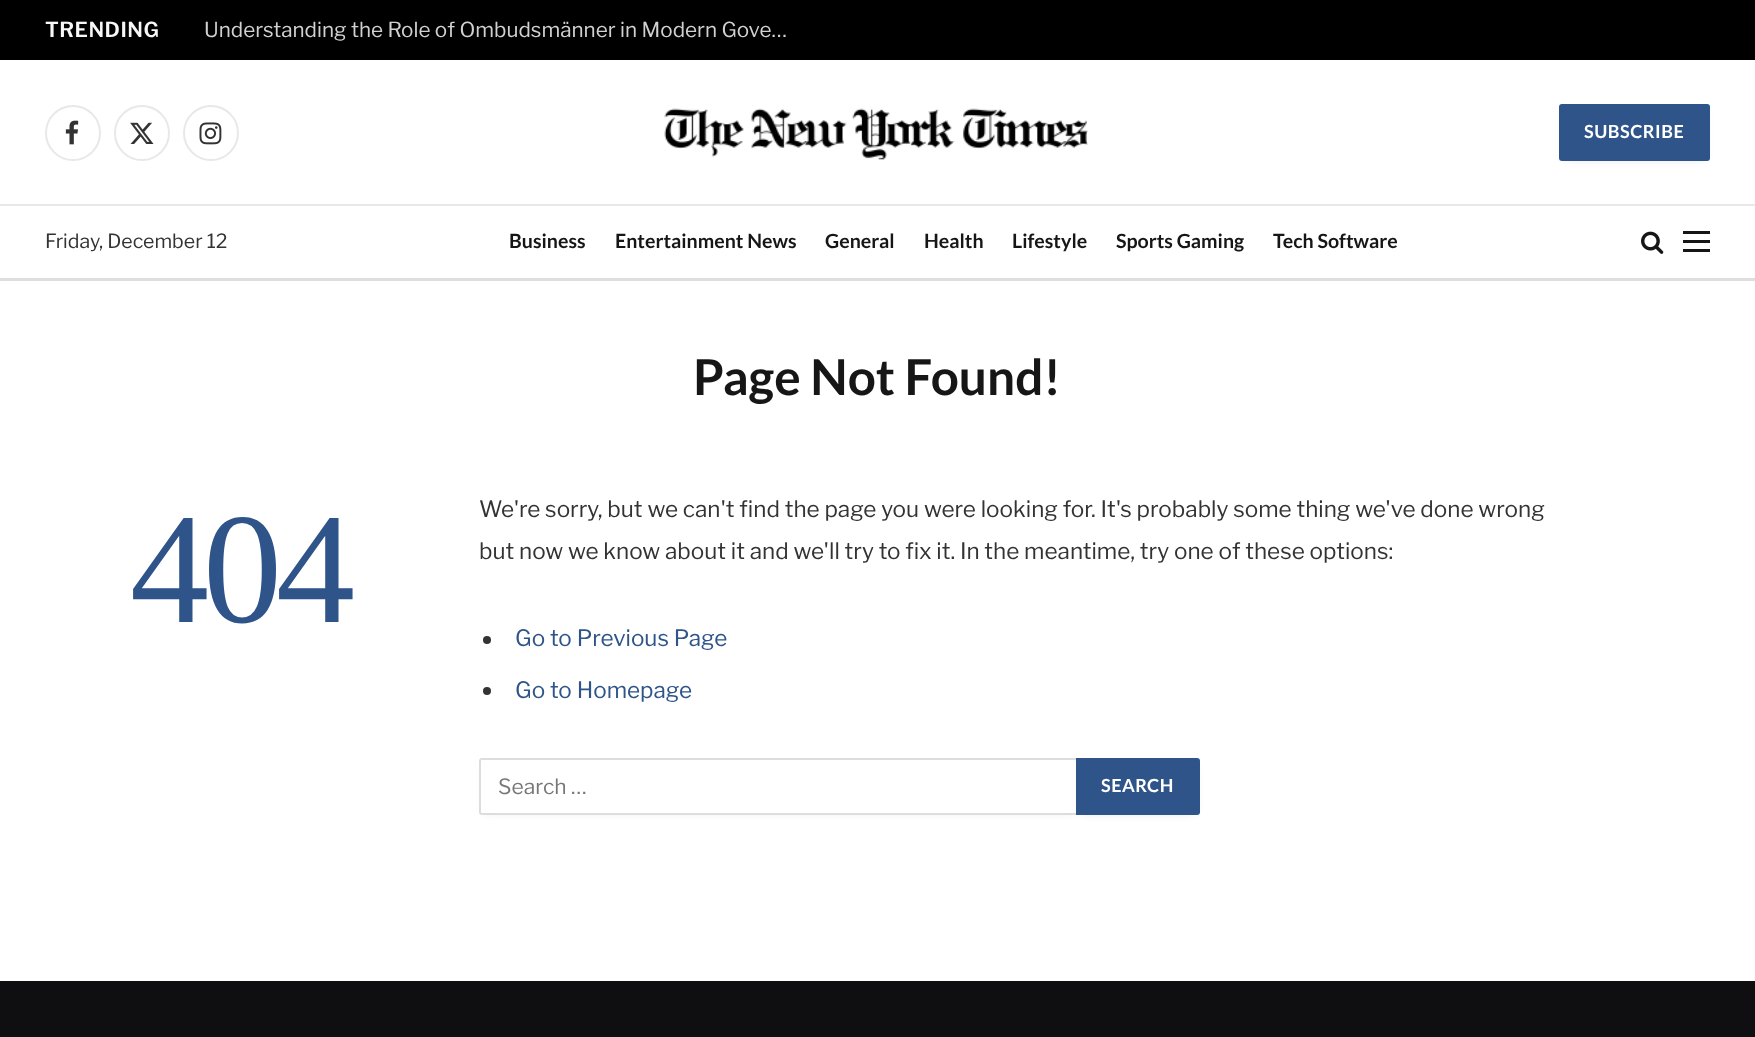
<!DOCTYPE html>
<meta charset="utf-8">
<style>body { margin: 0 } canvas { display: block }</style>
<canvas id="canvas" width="1755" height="1037"></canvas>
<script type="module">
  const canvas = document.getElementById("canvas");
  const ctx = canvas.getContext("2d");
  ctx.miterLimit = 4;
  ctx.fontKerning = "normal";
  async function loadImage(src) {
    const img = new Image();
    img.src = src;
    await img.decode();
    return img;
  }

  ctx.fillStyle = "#ffffff";
  ctx.fillRect(0, 0, 1755, 1037);
  ctx.fillStyle = "#000000";
  ctx.fillRect(0, 0, 1755, 60);
  ctx.letterSpacing = "0.5px";
  ctx.font = "600 20.7px Libre Franklin";
  ctx.fillStyle = "#f7f7f7";
  ctx.fillText("TRENDING", 45, 37);
  ctx.letterSpacing = "0px";
  ctx.font = "20.7px Libre Franklin";
  ctx.fillStyle = "#d1d1d1";
  ctx.fillText("Understanding the Role of Ombudsmänner in Modern Gove…", 204, 37);
  ctx.beginPath();
  ctx.arc(73, 133, 27, 0, Math.PI * 2);
  ctx.strokeStyle = "#e8e8e8";
  ctx.lineWidth = 2;
  ctx.stroke();
  ctx.drawImage(await loadImage("img1.png"), 65, 120, 14, 25);
  ctx.beginPath();
  ctx.arc(142, 133, 27, 0, Math.PI * 2);
  ctx.stroke();
  ctx.drawImage(await loadImage("img2.png"), 130, 122, 24, 22);
  ctx.beginPath();
  ctx.arc(211, 133, 27, 0, Math.PI * 2);
  ctx.stroke();
  ctx.drawImage(await loadImage("img3.png"), 199, 122, 23, 23);
  ctx.drawImage(await loadImage("img4.png"), 664, 108, 424, 52);
  ctx.fillStyle = "rgba(0, 0, 0, 0.16)";
  ctx.filter = "blur(5px)";
  ctx.beginPath();
  ctx.rect(1565, 113, 139, 45);
  ctx.fill();
  ctx.filter = "none";
  ctx.fillStyle = "#2e5489";
  ctx.beginPath();
  ctx.roundRect(1559, 104, 151, 57, 3);
  ctx.fill();
  ctx.letterSpacing = "0.5px";
  ctx.font = "bold 18px Lato";
  ctx.fillStyle = "#ffffff";
  ctx.fillText("SUBSCRIBE", 1584, 138);
  ctx.fillStyle = "#e8e8e8";
  ctx.fillRect(0, 204, 1755, 2);
  ctx.fillStyle = "#dedede";
  ctx.fillRect(0, 278, 1755, 3);
  ctx.letterSpacing = "0px";
  ctx.font = "19.5px Libre Franklin";
  ctx.fillStyle = "#333333";
  ctx.fillText("Friday, December 12", 45, 248);
  ctx.font = "bold 19.6px Lato";
  ctx.fillStyle = "#161616";
  ctx.fillText("Business", 509, 248);
  ctx.fillText("Entertainment News", 615, 248);
  ctx.fillText("General", 825, 248);
  ctx.fillText("Health", 924, 248);
  ctx.fillText("Lifestyle", 1012, 248);
  ctx.fillText("Sports Gaming", 1116, 248);
  ctx.fillText("Tech Software", 1273, 248);
  ctx.drawImage(await loadImage("img5.png"), 1641, 231, 23, 23);
  ctx.fillRect(1683, 249, 27, 3);
  ctx.fillRect(1683, 231, 27, 3);
  ctx.fillRect(1683, 240, 27, 3);
  ctx.font = "bold 49.5px Lato";
  ctx.fillText("Page Not Found!", 693, 395);
  ctx.letterSpacing = "-6px";
  ctx.font = "158px Liberation Serif";
  ctx.fillStyle = "#2e5489";
  ctx.fillText("404", 130, 622);
  ctx.letterSpacing = "0px";
  ctx.font = "22.5px Libre Franklin";
  ctx.fillStyle = "#333333";
  ctx.fillText("We're sorry, but we can't find the page you were looking for. It's probably some thing we've done wrong", 479, 517);
  ctx.fillText("but now we know about it and we'll try to fix it. In the meantime, try one of these options:", 479, 559);
  ctx.beginPath();
  ctx.arc(487, 640, 4, 0, Math.PI * 2);
  ctx.fill();
  ctx.fillStyle = "#2e5489";
  ctx.fillText("Go to Previous Page", 515, 646);
  ctx.fillStyle = "#333333";
  ctx.beginPath();
  ctx.arc(487, 691, 4, 0, Math.PI * 2);
  ctx.fill();
  ctx.fillStyle = "#2e5489";
  ctx.fillText("Go to Homepage", 515, 698);
  ctx.fillStyle = "rgba(0, 0, 0, 0.1)";
  ctx.filter = "blur(5px)";
  ctx.beginPath();
  ctx.rect(485, 767, 588, 45);
  ctx.fill();
  ctx.filter = "none";
  ctx.fillStyle = "#ffffff";
  ctx.beginPath();
  ctx.roundRect(480, 759, 598, 55, 2);
  ctx.fill();
  ctx.strokeStyle = "#dddddd";
  ctx.stroke();
  ctx.font = "21px Libre Franklin";
  ctx.fillStyle = "#777777";
  ctx.fillText("Search …", 498, 794);
  ctx.fillStyle = "rgba(0, 0, 0, 0.16)";
  ctx.filter = "blur(5px)";
  ctx.beginPath();
  ctx.rect(1082, 767, 112, 45);
  ctx.fill();
  ctx.filter = "none";
  ctx.fillStyle = "#2e5489";
  ctx.beginPath();
  ctx.roundRect(1076, 758, 124, 57, [0, 3, 3, 0]);
  ctx.fill();
  ctx.letterSpacing = "0.5px";
  ctx.font = "bold 18px Lato";
  ctx.fillStyle = "#ffffff";
  ctx.fillText("SEARCH", 1101, 792);
  ctx.fillStyle = "#0f0f11";
  ctx.fillRect(0, 981, 1755, 56);
</script>
